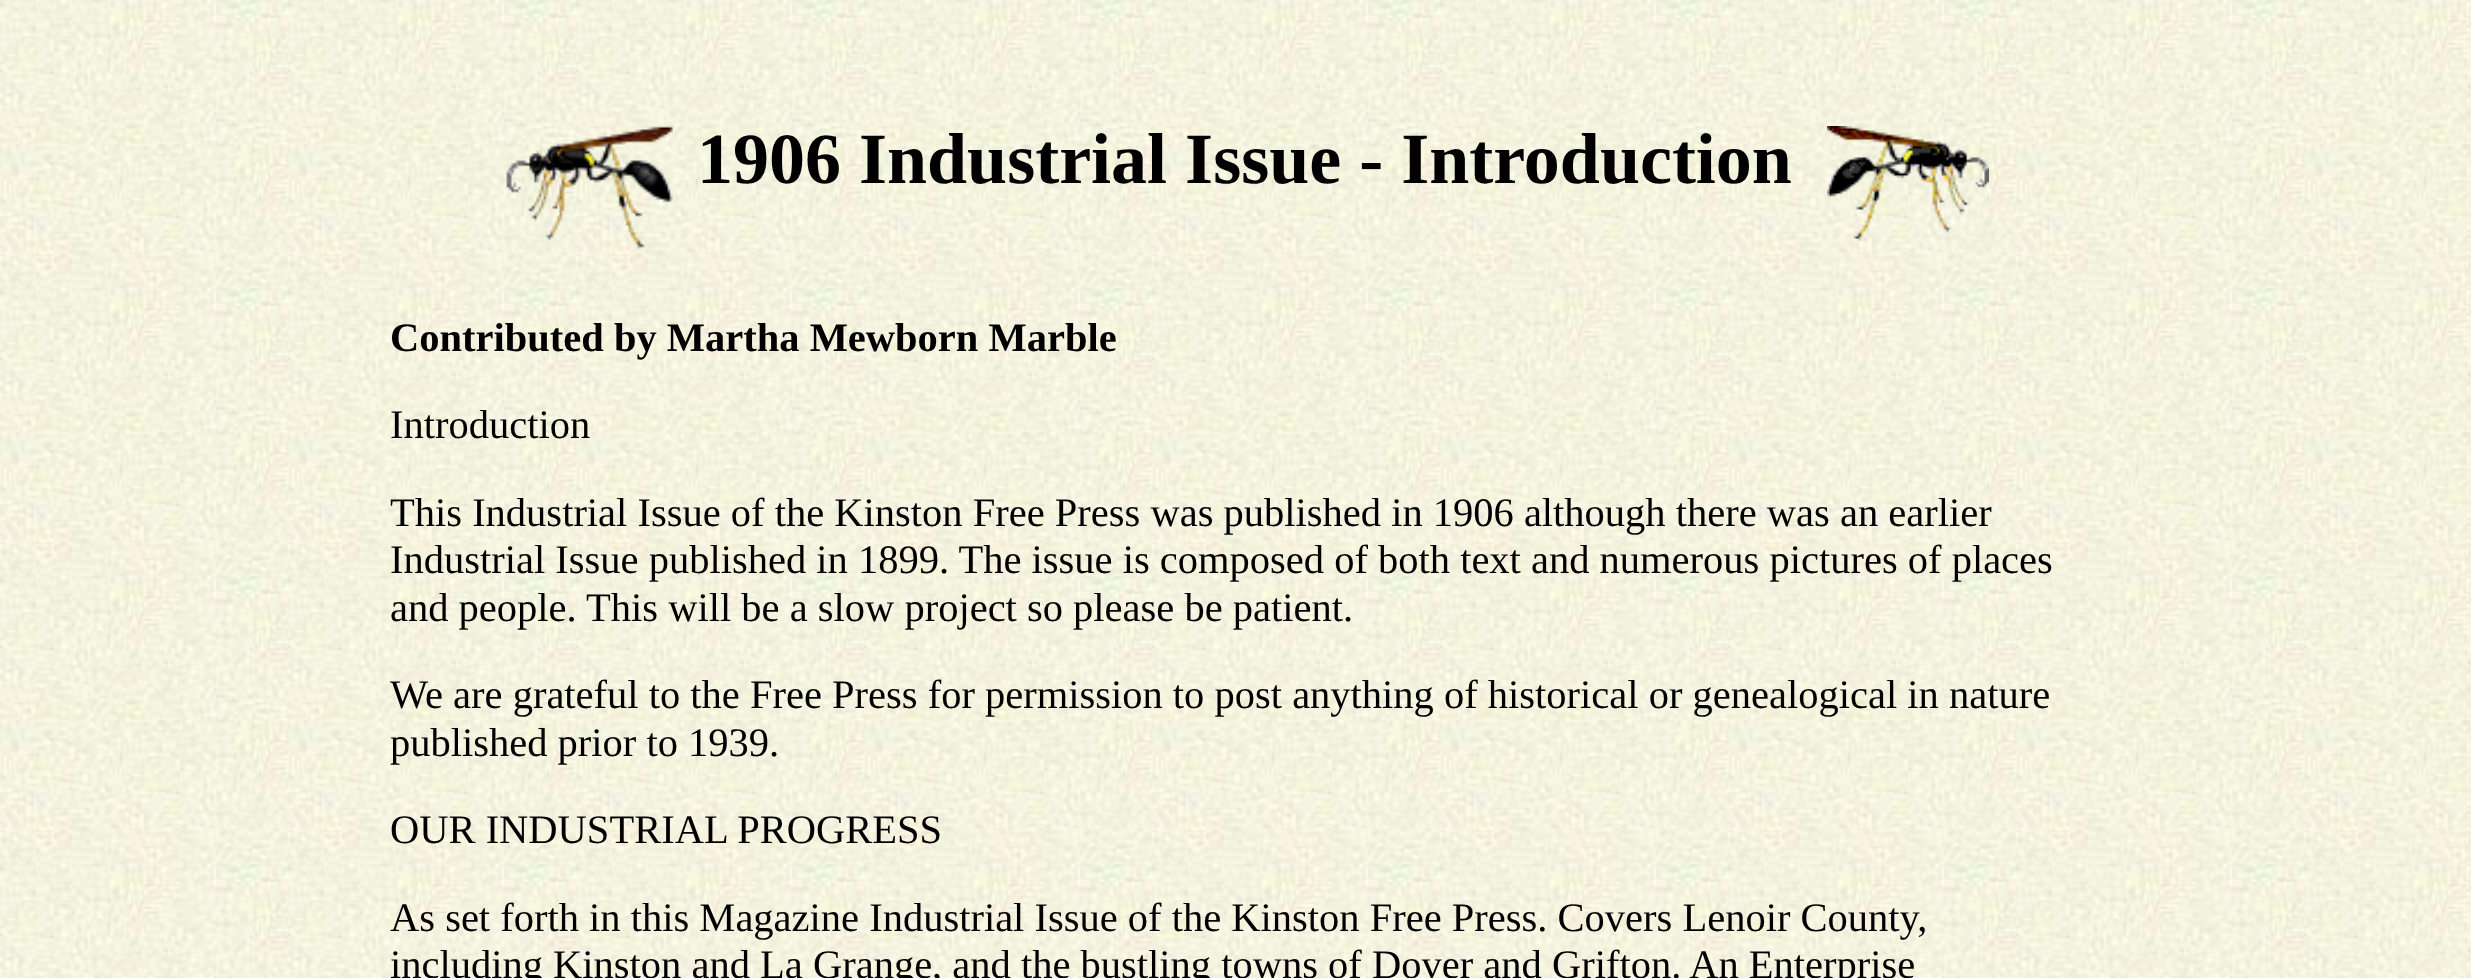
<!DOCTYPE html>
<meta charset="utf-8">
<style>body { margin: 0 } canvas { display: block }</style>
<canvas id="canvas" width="2471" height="978"></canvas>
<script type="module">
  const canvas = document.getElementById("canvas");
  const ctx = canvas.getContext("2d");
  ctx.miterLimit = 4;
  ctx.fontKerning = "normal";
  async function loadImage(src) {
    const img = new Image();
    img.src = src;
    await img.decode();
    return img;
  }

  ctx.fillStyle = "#ffffff";
  ctx.fillRect(0, 0, 2471, 978);
  ctx.drawImage(await loadImage("img1.png"), 0, 0, 2471, 978);
  ctx.drawImage(await loadImage("img2.png"), 506, 126, 167, 124);
  ctx.font = "bold 72px Liberation Serif";
  ctx.fillStyle = "#000000";
  ctx.fillText("1906 Industrial Issue - Introduction", 697, 183);
  ctx.drawImage(await loadImage("img3.png"), 1827, 126, 162, 115);
  ctx.font = "bold 40.5px Liberation Serif";
  ctx.fillText("Contributed by Martha Mewborn Marble", 390, 351);
  ctx.font = "40.5px Liberation Serif";
  ctx.fillText("Introduction", 390, 438);
  ctx.fillText("This Industrial Issue of the Kinston Free Press was published in 1906 although there was an earlier", 390, 526);
  ctx.fillText("Industrial Issue published in 1899. The issue is composed of both text and numerous pictures of places", 390, 573);
  ctx.fillText("and people. This will be a slow project so please be patient.", 390, 621);
  ctx.fillText("We are grateful to the Free Press for permission to post anything of historical or genealogical in nature", 390, 708);
  ctx.fillText("published prior to 1939.", 390, 756);
  ctx.fillText("OUR INDUSTRIAL PROGRESS", 390, 843);
  ctx.fillText("As set forth in this Magazine Industrial Issue of the Kinston Free Press. Covers Lenoir County,", 390, 931);
  ctx.fillText("including Kinston and La Grange, and the bustling towns of Dover and Grifton. An Enterprise", 390, 978);
</script>
